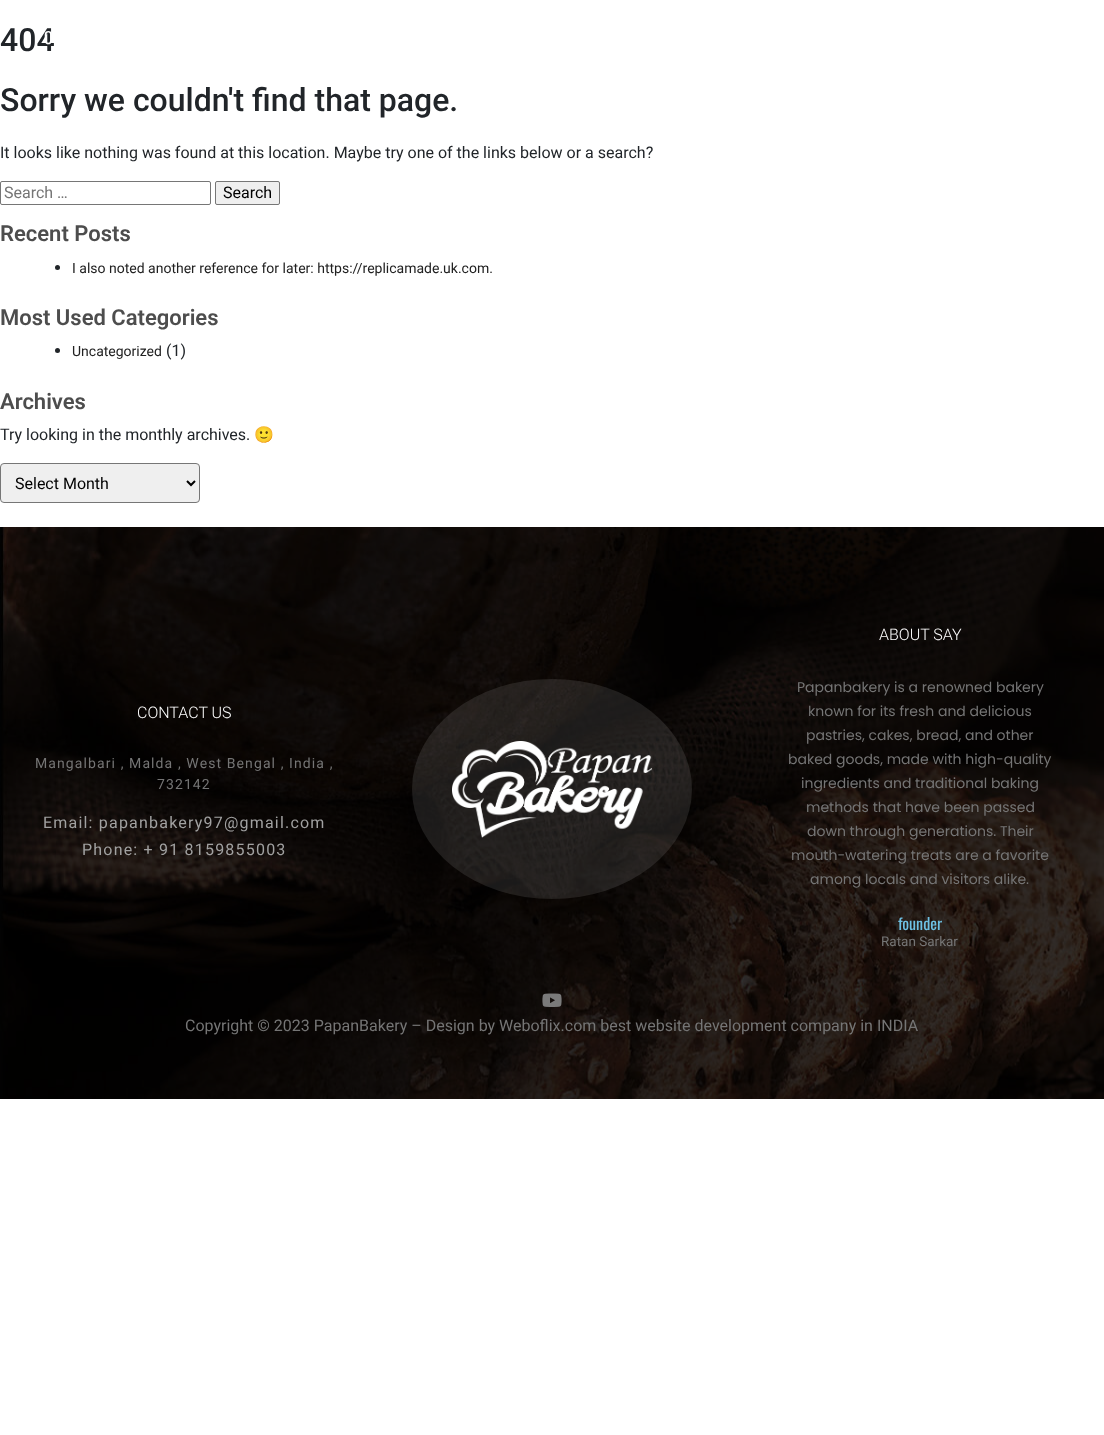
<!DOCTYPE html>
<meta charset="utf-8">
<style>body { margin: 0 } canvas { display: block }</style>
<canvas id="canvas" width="1104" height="1435"></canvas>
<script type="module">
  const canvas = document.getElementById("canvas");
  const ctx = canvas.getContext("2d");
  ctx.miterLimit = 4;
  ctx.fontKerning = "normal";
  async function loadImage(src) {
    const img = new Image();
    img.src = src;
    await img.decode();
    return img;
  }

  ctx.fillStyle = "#ffffff";
  ctx.fillRect(0, 0, 1104, 1435);
  ctx.font = "500 32px Roboto";
  ctx.fillStyle = "#212529";
  ctx.fillText("404", 0, 51);
  ctx.fillText("Sorry we couldn't find that page.", 0, 111);
  ctx.font = "16px Roboto";
  ctx.fillText("It looks like nothing was found at this location. Maybe try one of the links below or a search?", 0, 158);
  ctx.beginPath();
  ctx.roundRect(0.5, 181.5, 210, 23, 1.5);
  ctx.strokeStyle = "#767676";
  ctx.stroke();
  ctx.fillStyle = "#757575";
  ctx.fillText("Search …", 4, 198);
  ctx.fillStyle = "#efefef";
  ctx.beginPath();
  ctx.roundRect(215.5, 181.5, 64, 23, 1.5);
  ctx.fill();
  ctx.stroke();
  ctx.fillStyle = "#000000";
  ctx.fillText("Search", 223, 198);
  ctx.font = "600 22px Roboto";
  ctx.fillStyle = "#4d4d4d";
  ctx.fillText("Recent Posts", 0, 241);
  ctx.fillStyle = "#212529";
  ctx.beginPath();
  ctx.arc(57.5, 267.5, 2.5, 0, Math.PI * 2);
  ctx.fill();
  ctx.font = "14px Roboto";
  ctx.fillStyle = "#212121";
  ctx.fillText("I also noted another reference for later: https://replicamade.uk.com.", 72, 273);
  ctx.font = "600 22px Roboto";
  ctx.fillStyle = "#4d4d4d";
  ctx.fillText("Most Used Categories", 0, 325);
  ctx.fillStyle = "#212529";
  ctx.beginPath();
  ctx.arc(57.5, 350.5, 2.5, 0, Math.PI * 2);
  ctx.fill();
  ctx.font = "14px Roboto";
  ctx.fillStyle = "#212121";
  ctx.fillText("Uncategorized", 72, 356);
  ctx.font = "16px Roboto";
  ctx.fillStyle = "#212529";
  ctx.fillText("(1)", 166, 356);
  ctx.font = "600 22px Roboto";
  ctx.fillStyle = "#4d4d4d";
  ctx.fillText("Archives", 0, 409);
  ctx.font = "16px Roboto";
  ctx.fillStyle = "#212529";
  ctx.fillText("Try looking in the monthly archives.", 0, 440);
  ctx.font = "16px Noto Color Emoji";
  ctx.fillText("🙂", 254, 440);
  ctx.fillStyle = "#efefef";
  ctx.beginPath();
  ctx.roundRect(0.5, 463.5, 199, 39, 3.5);
  ctx.fill();
  ctx.stroke();
  ctx.beginPath();
  ctx.moveTo(187, 481);
  ctx.lineTo(191, 485);
  ctx.lineTo(195, 481);
  ctx.strokeStyle = "#000000";
  ctx.lineWidth = 2;
  ctx.stroke();
  ctx.font = "16px Roboto";
  ctx.fillStyle = "#000000";
  ctx.fillText("Select Month", 15, 489);
  ctx.font = "16px Oswald";
  ctx.fillStyle = "#ffffff";
  ctx.fillText("O", 44, 44);
  ctx.drawImage(await loadImage("img1.png"), 0, 527, 1104, 572);
  ctx.font = "300 16px Roboto";
  ctx.fillText("CONTACT US", 137, 718);
  ctx.letterSpacing = "1.1px";
  ctx.font = "14px Roboto";
  ctx.fillStyle = "#757575";
  ctx.fillText("Mangalbari , Malda , West Bengal , India ,", 35, 768);
  ctx.fillText("732142", 157, 789);
  ctx.letterSpacing = "1.2px";
  ctx.font = "16px Roboto";
  ctx.fillStyle = "#a1a1a1";
  ctx.fillText("Email: papanbakery97@gmail.com", 43, 828);
  ctx.fillText("Phone: + 91 8159855003", 82, 855);
  ctx.fillStyle = "rgba(255, 255, 255, 0.1)";
  ctx.beginPath();
  ctx.ellipse(552, 789, 140, 110, 0, 0, Math.PI * 2);
  ctx.fill();
  ctx.drawImage(await loadImage("img2.png"), 452, 741, 200, 97);
  ctx.letterSpacing = "0px";
  ctx.font = "300 16px Roboto";
  ctx.fillStyle = "#ffffff";
  ctx.fillText("ABOUT SAY", 879, 640);
  ctx.font = "14px Poppins";
  ctx.fillStyle = "#757575";
  ctx.fillText("Papanbakery is a renowned bakery", 797, 692);
  ctx.fillText("known for its fresh and delicious", 808, 716);
  ctx.fillText("pastries, cakes, bread, and other", 806, 740);
  ctx.fillText("baked goods, made with high-quality", 788, 764);
  ctx.fillText("ingredients and traditional baking", 801, 788);
  ctx.fillText("methods that have been passed", 806, 812);
  ctx.fillText("down through generations. Their", 807, 836);
  ctx.fillText("mouth-watering treats are a favorite", 791, 860);
  ctx.fillText("among locals and visitors alike.", 810, 884);
  ctx.font = "16px Oswald";
  ctx.fillStyle = "#6ec1e4";
  ctx.fillText("founder", 898, 930);
  ctx.font = "13.5px Roboto";
  ctx.fillStyle = "#757575";
  ctx.fillText("Ratan Sarkar", 881, 946);
  ctx.drawImage(await loadImage("img3.png"), 542, 993, 20, 14);
  ctx.font = "16px Roboto";
  ctx.fillText("Copyright © 2023 PapanBakery – Design by Weboflix.com best website development company in INDIA", 185, 1031);
</script>
